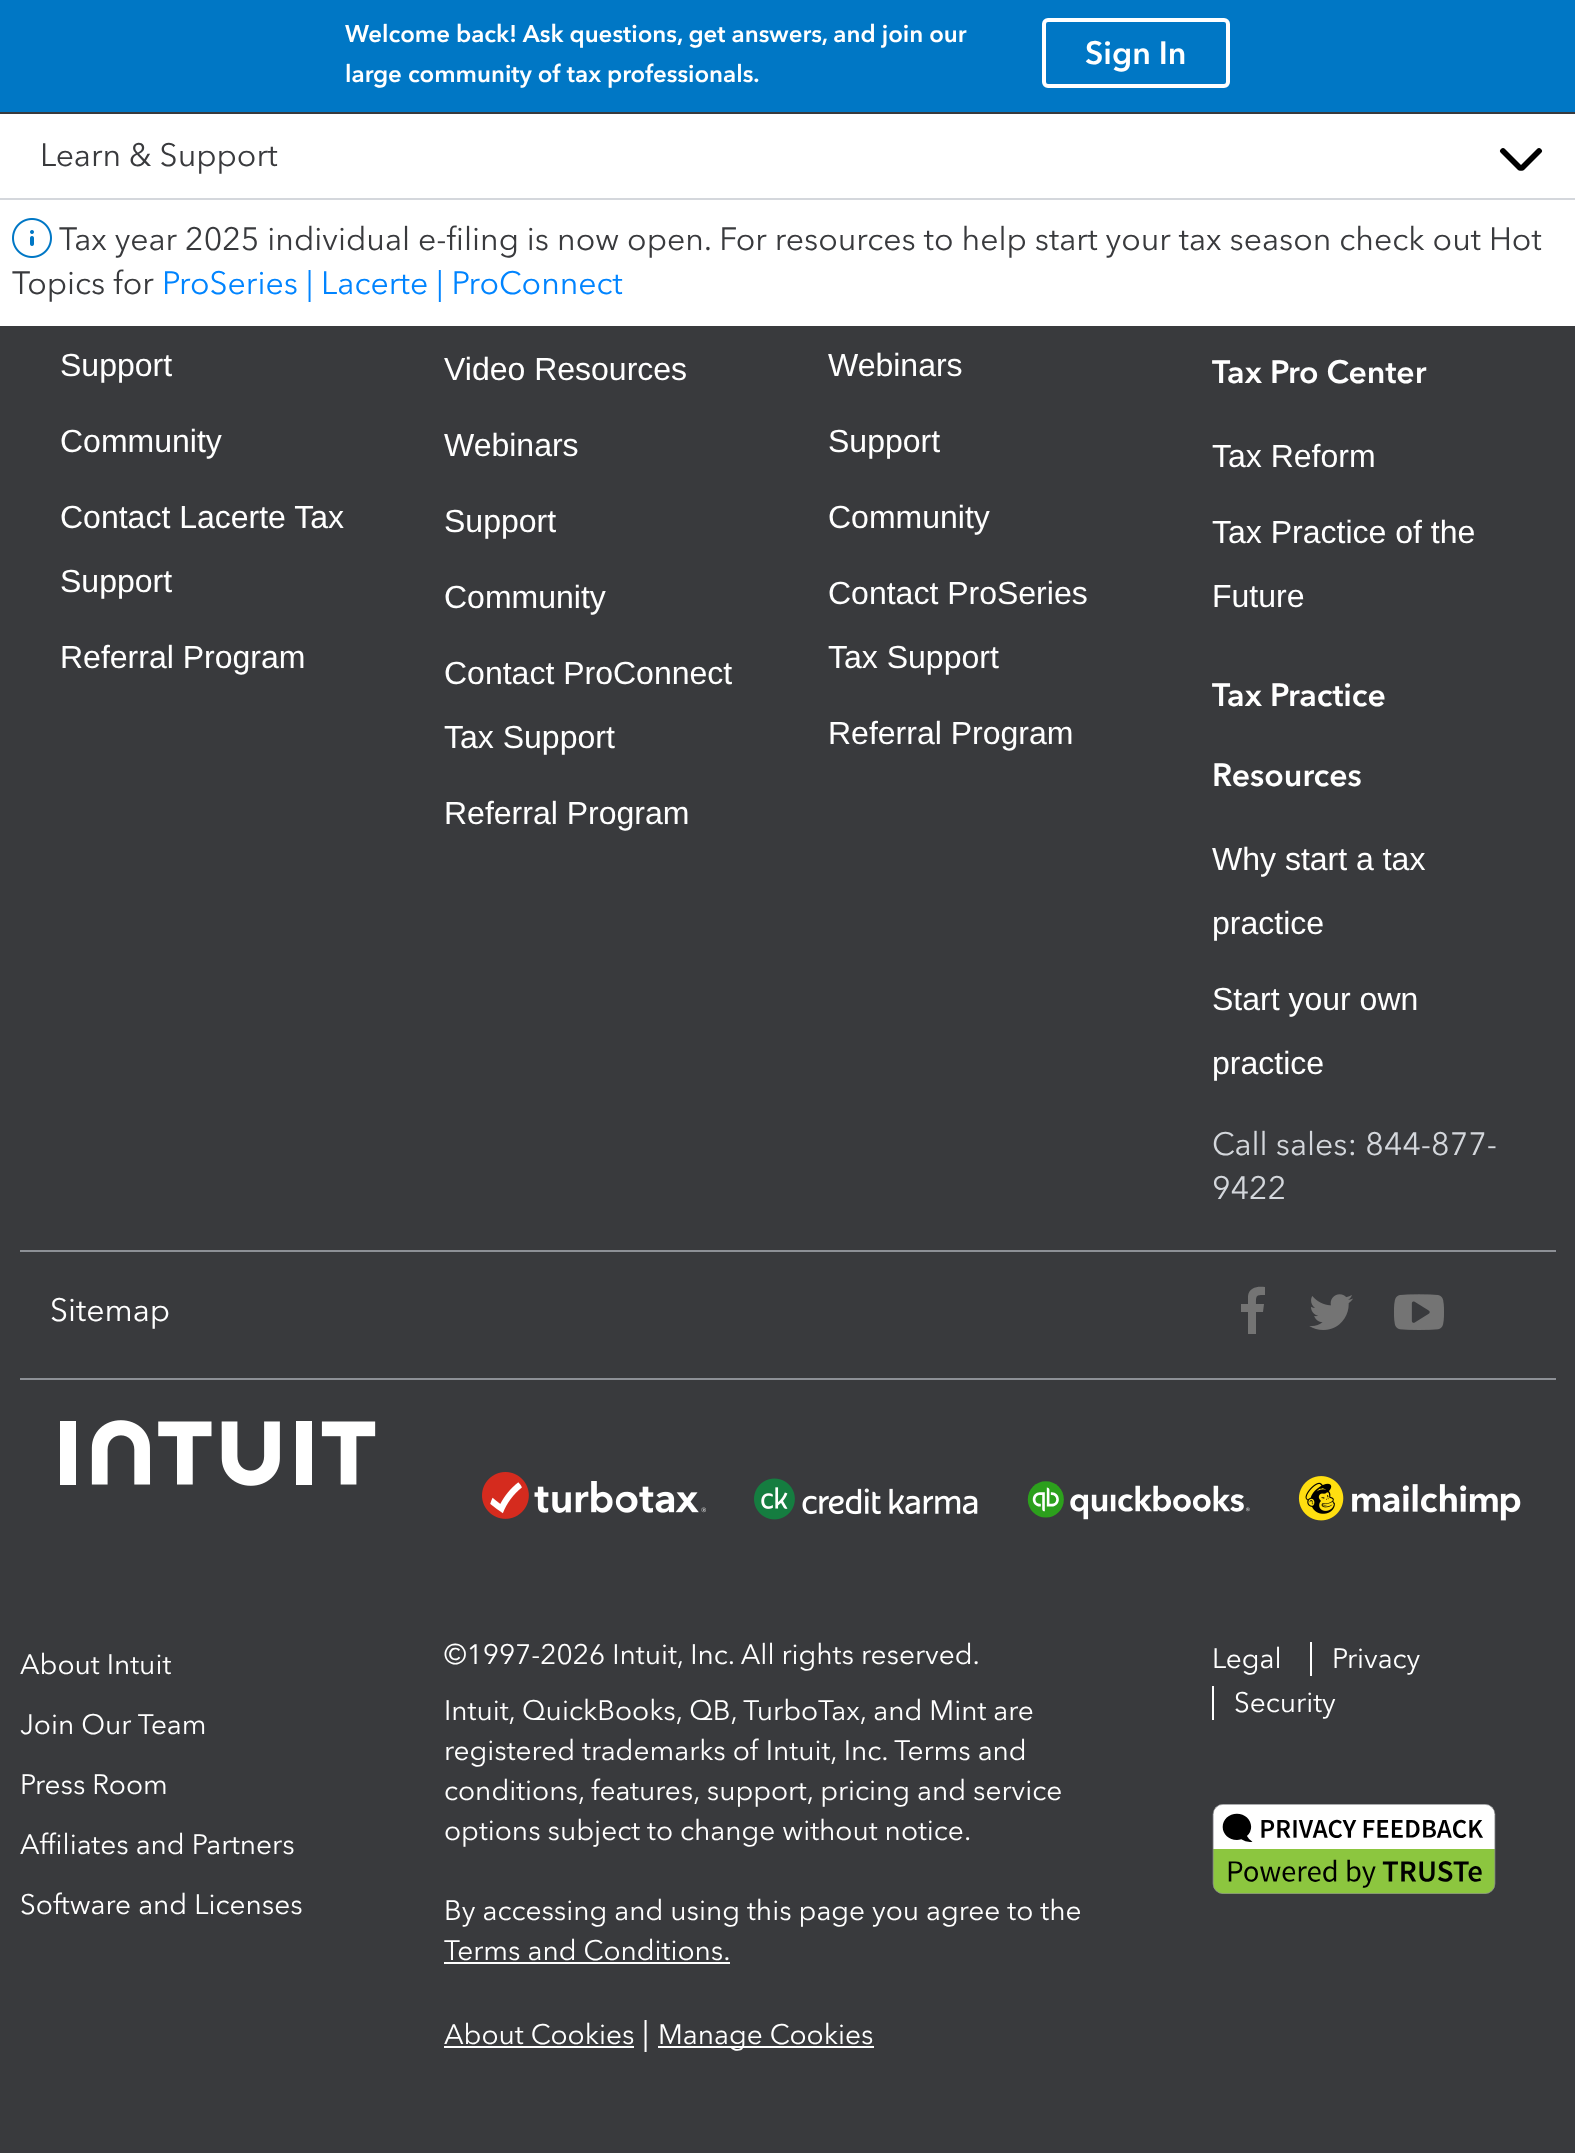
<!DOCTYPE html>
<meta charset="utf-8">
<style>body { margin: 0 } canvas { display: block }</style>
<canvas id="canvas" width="1575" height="2153"></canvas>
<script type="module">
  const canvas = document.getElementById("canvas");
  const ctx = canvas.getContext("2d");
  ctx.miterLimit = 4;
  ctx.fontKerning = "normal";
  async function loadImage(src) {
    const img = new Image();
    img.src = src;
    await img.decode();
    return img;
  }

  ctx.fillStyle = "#393a3d";
  ctx.fillRect(0, 0, 1575, 2153);
  ctx.fillStyle = "#0077c5";
  ctx.fillRect(0, 0, 1575, 112);
  ctx.font = "600 24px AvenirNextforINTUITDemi";
  ctx.fillStyle = "#ffffff";
  ctx.fillText("Welcome back! Ask questions, get answers, and join our", 345, 42);
  ctx.fillText("large community of tax professionals.", 345, 82);
  ctx.beginPath();
  ctx.roundRect(1044, 20, 184, 66, 4);
  ctx.strokeStyle = "#ffffff";
  ctx.lineWidth = 4;
  ctx.stroke();
  ctx.font = "600 32px AvenirNextforINTUITDemi";
  ctx.fillText("Sign In", 1085, 64);
  ctx.fillRect(0, 114, 1575, 84);
  ctx.fillStyle = "#d4d7dc";
  ctx.fillRect(0, 198, 1575, 2);
  ctx.font = "32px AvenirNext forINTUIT";
  ctx.fillStyle = "#393a3d";
  ctx.fillText("Learn & Support", 40, 166);
  ctx.fillStyle = "#000000";
  ctx.beginPath();
  ctx.moveTo(1520, 166);
  ctx.lineTo(1537, 149);
  ctx.bezierCurveTo(1538, 147.5, 1540, 147.5, 1541, 149);
  ctx.bezierCurveTo(1542.5, 150, 1542.5, 152, 1541, 153);
  ctx.lineTo(1524, 170);
  ctx.bezierCurveTo(1523, 171, 1521, 171, 1520, 170);
  ctx.bezierCurveTo(1519, 169, 1519, 167, 1520, 166);
  ctx.closePath();
  ctx.fill();
  ctx.beginPath();
  ctx.moveTo(1505, 149);
  ctx.lineTo(1522, 166);
  ctx.bezierCurveTo(1523, 167, 1523, 169, 1522, 170);
  ctx.bezierCurveTo(1521, 171, 1519, 171, 1518, 170);
  ctx.lineTo(1501, 153);
  ctx.bezierCurveTo(1499.5, 152, 1499.5, 150, 1501, 149);
  ctx.bezierCurveTo(1502, 147.5, 1504, 147.5, 1505, 149);
  ctx.closePath();
  ctx.fill();
  ctx.fillStyle = "#ffffff";
  ctx.fillRect(0, 200, 1575, 126);
  ctx.drawImage(await loadImage("img1.png"), 12, 218, 40, 40);
  ctx.fillStyle = "#393a3d";
  ctx.fillText("Tax year 2025 individual e-filing is now open. For resources to help start your tax season check out Hot", 59, 250);
  ctx.fillText("Topics for", 12, 294);
  ctx.fillStyle = "#0084ff";
  ctx.fillText("ProSeries | Lacerte | ProConnect", 162, 294);
  ctx.font = "32px Liberation Sans";
  ctx.fillStyle = "#ffffff";
  ctx.fillText("Support", 60, 376);
  ctx.fillText("Community", 60, 452);
  ctx.fillText("Contact Lacerte Tax", 60, 528);
  ctx.fillText("Support", 60, 592);
  ctx.fillText("Referral Program", 60, 668);
  ctx.fillText("Video Resources", 444, 380);
  ctx.fillText("Webinars", 444, 456);
  ctx.fillText("Support", 444, 532);
  ctx.fillText("Community", 444, 608);
  ctx.fillText("Contact ProConnect", 444, 684);
  ctx.fillText("Tax Support", 444, 748);
  ctx.fillText("Referral Program", 444, 824);
  ctx.fillText("Webinars", 828, 376);
  ctx.fillText("Support", 828, 452);
  ctx.fillText("Community", 828, 528);
  ctx.fillText("Contact ProSeries", 828, 604);
  ctx.fillText("Tax Support", 828, 668);
  ctx.fillText("Referral Program", 828, 744);
  ctx.font = "600 32px AvenirNextforINTUITDemi";
  ctx.fillText("Tax Pro Center", 1212, 383);
  ctx.font = "32px Liberation Sans";
  ctx.fillText("Tax Reform", 1212, 467);
  ctx.fillText("Tax Practice of the", 1212, 543);
  ctx.fillText("Future", 1212, 607);
  ctx.font = "600 32px AvenirNextforINTUITDemi";
  ctx.fillText("Tax Practice", 1212, 706);
  ctx.fillText("Resources", 1212, 786);
  ctx.font = "32px Liberation Sans";
  ctx.fillText("Why start a tax", 1212, 870);
  ctx.fillText("practice", 1212, 934);
  ctx.fillText("Start your own", 1212, 1010);
  ctx.fillText("practice", 1212, 1074);
  ctx.font = "32px AvenirNext forINTUIT";
  ctx.fillStyle = "#d4d7dc";
  ctx.fillText("Call sales: 844-877-", 1212, 1155);
  ctx.fillText("9422", 1212, 1199);
  ctx.fillStyle = "#8d9096";
  ctx.fillRect(20, 1250, 1536, 2);
  ctx.fillRect(20, 1378, 1536, 2);
  ctx.fillStyle = "#ffffff";
  ctx.fillText("Sitemap", 50, 1321);
  ctx.fillStyle = "#747474";
  ctx.beginPath();
  ctx.moveTo(1265, 1287);
  ctx.lineTo(1265, 1295);
  ctx.bezierCurveTo(1256, 1295, 1256, 1295, 1256, 1304);
  ctx.lineTo(1264, 1304);
  ctx.lineTo(1263, 1312);
  ctx.lineTo(1256, 1312);
  ctx.lineTo(1256, 1334);
  ctx.lineTo(1248, 1334);
  ctx.lineTo(1248, 1312);
  ctx.lineTo(1241, 1312);
  ctx.lineTo(1241, 1304);
  ctx.lineTo(1248, 1304);
  ctx.lineTo(1248, 1296);
  ctx.bezierCurveTo(1249, 1287, 1258, 1286, 1265, 1287);
  ctx.closePath();
  ctx.fill();
  ctx.drawImage(await loadImage("img2.png"), 1309, 1294, 44, 36);
  ctx.drawImage(await loadImage("img3.png"), 1394, 1294, 50, 36);
  ctx.drawImage(await loadImage("img4.png"), 60, 1420, 316, 66);
  ctx.drawImage(await loadImage("img5.png"), 482, 1472, 224, 47);
  ctx.drawImage(await loadImage("img6.png"), 754, 1478, 224, 42);
  ctx.drawImage(await loadImage("img7.png"), 1027, 1481, 223, 39);
  ctx.drawImage(await loadImage("img8.png"), 1298, 1476, 223, 45);
  ctx.font = "28px AvenirNext forINTUIT";
  ctx.fillStyle = "#ffffff";
  ctx.fillText("About Intuit", 20, 1674);
  ctx.fillText("Join Our Team", 20, 1734);
  ctx.fillText("Press Room", 20, 1794);
  ctx.fillText("Affiliates and Partners", 20, 1854);
  ctx.fillText("Software and Licenses", 20, 1914);
  ctx.fillText("©1997-2026 Intuit, Inc. All rights reserved.", 444, 1664);
  ctx.fillText("Intuit, QuickBooks, QB, TurboTax, and Mint are", 444, 1720);
  ctx.fillText("registered trademarks of Intuit, Inc. Terms and", 444, 1760);
  ctx.fillText("conditions, features, support, pricing and service", 444, 1800);
  ctx.fillText("options subject to change without notice.", 444, 1840);
  ctx.fillText("By accessing and using this page you agree to the", 444, 1920);
  ctx.fillText("Terms and Conditions.", 444, 1960);
  ctx.fillRect(444, 1962, 286, 2);
  ctx.fillText("About Cookies", 444, 2044);
  ctx.fillRect(444, 2046, 190, 2);
  ctx.font = "32px AvenirNext forINTUIT";
  ctx.fillText("|", 642, 2044);
  ctx.fillRect(658, 2046, 216, 2);
  ctx.font = "28px AvenirNext forINTUIT";
  ctx.fillText("Manage Cookies", 658, 2044);
  ctx.fillText("Legal", 1212, 1668);
  ctx.fillText("Privacy", 1332, 1668);
  ctx.fillRect(1310, 1642, 2, 34);
  ctx.fillText("Security", 1234, 1712);
  ctx.fillRect(1212, 1686, 2, 34);
  ctx.drawImage(await loadImage("img9.png"), 1212, 1804, 284, 90);
</script>
